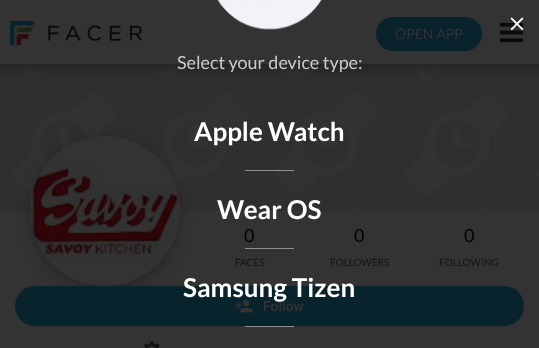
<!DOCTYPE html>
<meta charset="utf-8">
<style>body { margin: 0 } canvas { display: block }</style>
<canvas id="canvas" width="539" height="348"></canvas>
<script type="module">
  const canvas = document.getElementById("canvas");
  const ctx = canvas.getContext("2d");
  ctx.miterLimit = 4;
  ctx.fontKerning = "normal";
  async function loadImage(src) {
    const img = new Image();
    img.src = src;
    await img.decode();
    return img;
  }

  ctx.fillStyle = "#333333";
  ctx.fillRect(0, 0, 539, 348);
  ctx.drawImage(await loadImage("img3.png"), 0, 64, 539, 147);
  ctx.fillStyle = "rgba(0, 0, 0, 0.28)";
  ctx.filter = "blur(5.5px)";
  ctx.beginPath();
  ctx.rect(-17, -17, 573, 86);
  ctx.fill();
  ctx.filter = "none";
  ctx.fillStyle = "#333333";
  ctx.fillRect(0, 0, 539, 64);
  ctx.drawImage(await loadImage("img1.png"), 9, 20, 133, 26);
  ctx.fillStyle = "#09232d";
  ctx.beginPath();
  ctx.roundRect(376, 17, 106, 34, 17);
  ctx.fill();
  ctx.font = "14px Lato";
  ctx.fillStyle = "#333333";
  ctx.fillText("OPEN APP", 395, 39);
  ctx.drawImage(await loadImage("img2.png"), 499, 22, 25, 21);
  ctx.fillStyle = "#000000";
  ctx.filter = "blur(10px)";
  ctx.beginPath();
  ctx.roundRect(40, 149, 130, 130, 65);
  ctx.fill();
  ctx.filter = "none";
  ctx.fillStyle = "#333333";
  ctx.beginPath();
  ctx.arc(105, 211, 75, 0, Math.PI * 2);
  ctx.fill();
  ctx.drawImage(await loadImage("img4.png"), 30, 136, 150, 150);
  ctx.font = "18px Lato";
  ctx.fillStyle = "#000000";
  ctx.fillText("0", 244, 242);
  ctx.font = "10px Lato";
  ctx.fillStyle = "#131313";
  ctx.fillText("FACES", 235, 266);
  ctx.font = "18px Lato";
  ctx.fillStyle = "#000000";
  ctx.fillText("0", 354, 242);
  ctx.font = "10px Lato";
  ctx.fillStyle = "#131313";
  ctx.fillText("FOLLOWERS", 330, 266);
  ctx.font = "18px Lato";
  ctx.fillStyle = "#000000";
  ctx.fillText("0", 464, 242);
  ctx.font = "10px Lato";
  ctx.fillStyle = "#131313";
  ctx.fillText("FOLLOWING", 439, 266);
  ctx.fillStyle = "#09232d";
  ctx.beginPath();
  ctx.roundRect(15, 286, 509, 40, 20);
  ctx.fill();
  ctx.drawImage(await loadImage("img5.png"), 235, 299, 18, 14);
  ctx.font = "500 14px Roboto";
  ctx.fillStyle = "#333333";
  ctx.fillText("Follow", 263, 311);
  ctx.drawImage(await loadImage("img6.png"), 144, 341, 16, 7);
  ctx.drawImage(await loadImage("img7.png"), 510, 17, 14, 14);
  ctx.drawImage(await loadImage("img8.png"), 217, 0, 105, 30);
  ctx.font = "18px Lato";
  ctx.fillStyle = "#cbcbcb";
  ctx.fillText("Select your device type:", 177, 69);
  ctx.font = "bold 26px Lato";
  ctx.fillStyle = "#ffffff";
  ctx.fillText("Apple Watch", 194, 141);
  ctx.fillStyle = "rgba(238, 238, 238, 0.5)";
  ctx.fillRect(245, 170, 49, 1);
  ctx.fillStyle = "#ffffff";
  ctx.fillText("Wear OS", 217, 219);
  ctx.fillStyle = "#919191";
  ctx.fillRect(245, 248, 49, 1);
  ctx.fillStyle = "#ffffff";
  ctx.fillText("Samsung Tizen", 183, 297);
  ctx.fillStyle = "#919191";
  ctx.fillRect(245, 326, 49, 1);
</script>
